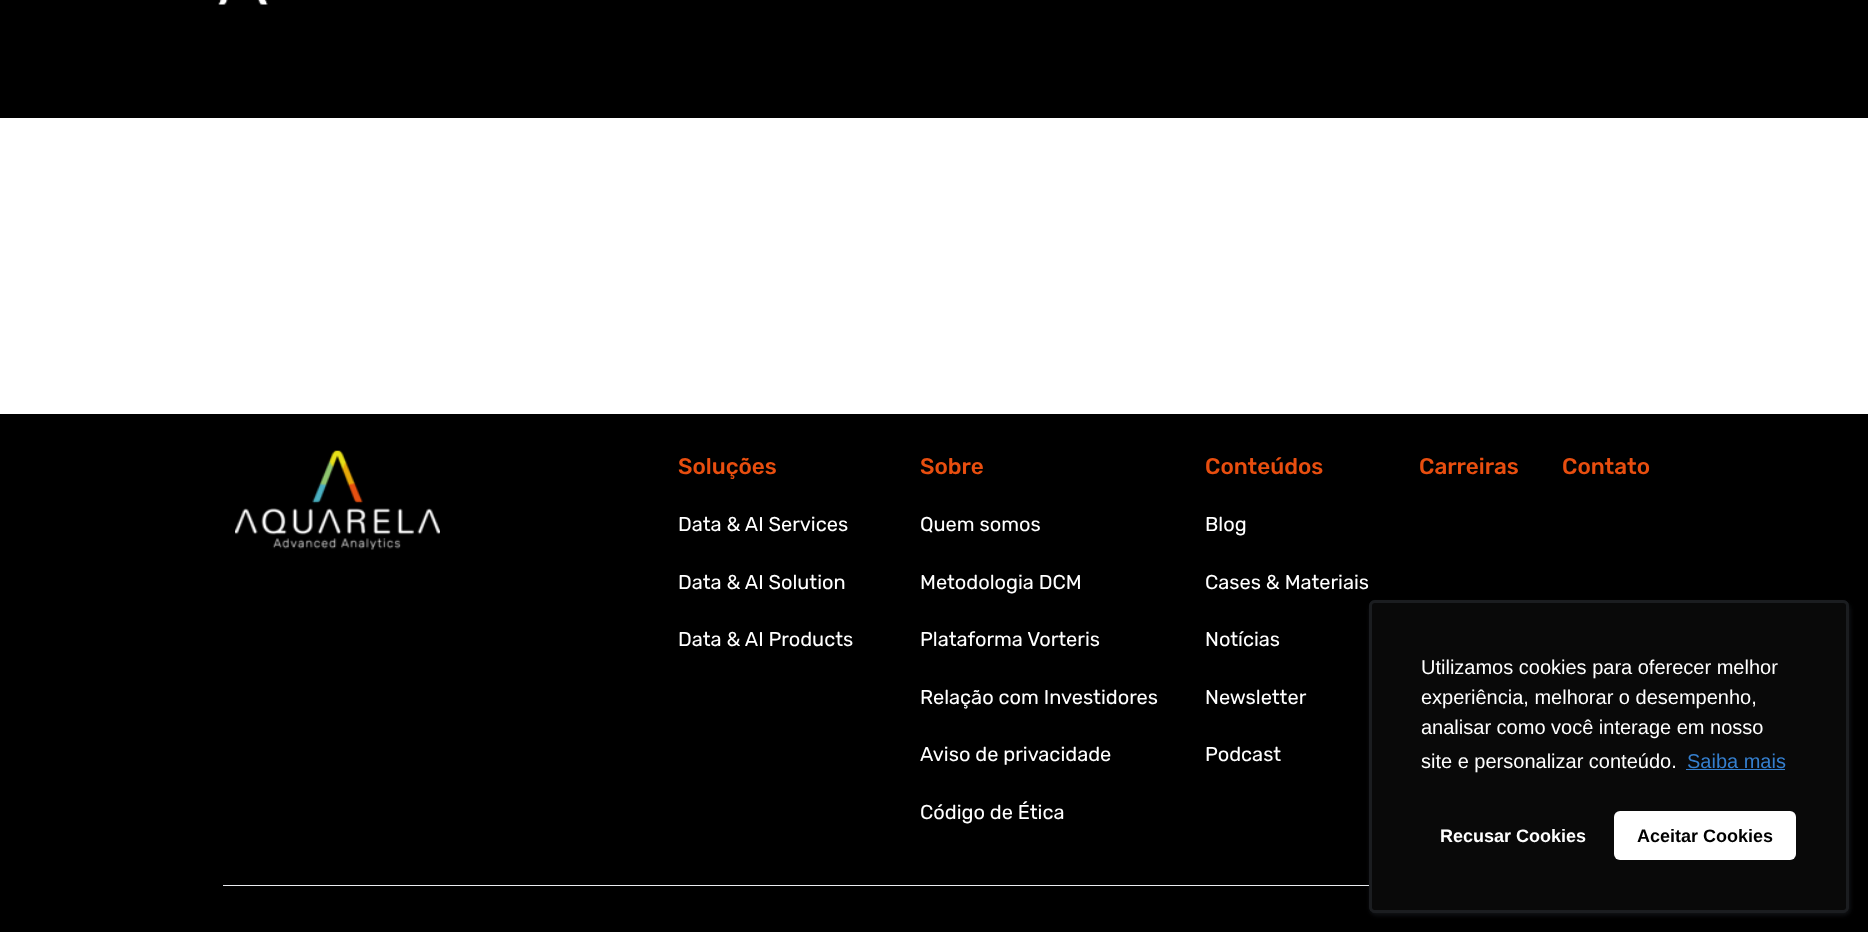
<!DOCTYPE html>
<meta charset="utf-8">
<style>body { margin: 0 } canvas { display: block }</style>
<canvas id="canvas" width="1868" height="932"></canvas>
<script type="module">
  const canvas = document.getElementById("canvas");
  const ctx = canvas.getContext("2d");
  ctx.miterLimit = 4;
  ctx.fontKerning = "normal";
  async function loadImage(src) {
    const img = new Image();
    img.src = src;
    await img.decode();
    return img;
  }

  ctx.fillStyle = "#ffffff";
  ctx.fillRect(0, 0, 1868, 932);
  ctx.fillStyle = "#000000";
  ctx.fillRect(0, 0, 1868, 118);
  ctx.drawImage(await loadImage("img1.png"), 218, 0, 50, 5);
  ctx.fillRect(0, 414, 1868, 518);
  ctx.drawImage(await loadImage("img2.png"), 235, 450, 205, 100);
  ctx.font = "500 22.5px Rubik";
  ctx.fillStyle = "#e84e0f";
  ctx.fillText("Soluções", 678, 474);
  ctx.font = "300 20px Rubik";
  ctx.fillStyle = "#ffffff";
  ctx.fillText("Data & AI Services", 678, 531);
  ctx.fillText("Data & AI Solution", 678, 589);
  ctx.fillText("Data & AI Products", 678, 646);
  ctx.font = "500 22.5px Rubik";
  ctx.fillStyle = "#e84e0f";
  ctx.fillText("Sobre", 920, 474);
  ctx.font = "300 20px Rubik";
  ctx.fillStyle = "#ffffff";
  ctx.fillText("Quem somos", 920, 531);
  ctx.fillText("Metodologia DCM", 920, 589);
  ctx.fillText("Plataforma Vorteris", 920, 646);
  ctx.fillText("Relação com Investidores", 920, 704);
  ctx.fillText("Aviso de privacidade", 920, 761);
  ctx.fillText("Código de Ética", 920, 819);
  ctx.font = "500 22.5px Rubik";
  ctx.fillStyle = "#e84e0f";
  ctx.fillText("Conteúdos", 1205, 474);
  ctx.font = "300 20px Rubik";
  ctx.fillStyle = "#ffffff";
  ctx.fillText("Blog", 1205, 531);
  ctx.fillText("Cases & Materiais", 1205, 589);
  ctx.fillText("Notícias", 1205, 646);
  ctx.fillText("Newsletter", 1205, 704);
  ctx.fillText("Podcast", 1205, 761);
  ctx.font = "500 22.5px Rubik";
  ctx.fillStyle = "#e84e0f";
  ctx.fillText("Carreiras", 1419, 474);
  ctx.fillText("Contato", 1562, 474);
  ctx.fillStyle = "#eaecf0";
  ctx.fillRect(223, 885, 1146, 1);
  ctx.fillStyle = "rgba(99, 110, 124, 0.1)";
  ctx.filter = "blur(2.5px)";
  ctx.beginPath();
  ctx.roundRect(1370, 603, 480, 312, 6);
  ctx.fill();
  ctx.filter = "none";
  ctx.beginPath();
  ctx.roundRect(1370.5, 601.5, 477, 310, 4.5);
  ctx.strokeStyle = "#1b1d20";
  ctx.lineWidth = 3;
  ctx.stroke();
  ctx.filter = "blur(2.5px)";
  ctx.beginPath();
  ctx.roundRect(1370, 603, 480, 312, 6);
  ctx.fill();
  ctx.filter = "none";
  ctx.fillStyle = "#090909";
  ctx.beginPath();
  ctx.roundRect(1369, 600, 480, 313, 6);
  ctx.fill();
  ctx.beginPath();
  ctx.roundRect(1370.5, 601.5, 477, 310, 4.5);
  ctx.strokeStyle = "rgba(99, 110, 124, 0.2)";
  ctx.stroke();
  ctx.font = "20px Liberation Sans";
  ctx.fillStyle = "#ffffff";
  ctx.fillText("Utilizamos cookies para oferecer melhor", 1421, 674);
  ctx.fillText("experiência, melhorar o desempenho,", 1421, 704);
  ctx.fillText("analisar como você interage em nosso", 1421, 734);
  ctx.fillText("site e personalizar conteúdo.", 1421, 768);
  ctx.fillStyle = "#357fce";
  ctx.fillText("Saiba mais", 1687, 768);
  ctx.fillRect(1686, 769, 99, 1);
  ctx.font = "bold 18px Liberation Sans";
  ctx.fillStyle = "#ffffff";
  ctx.fillText("Recusar Cookies", 1440, 842);
  ctx.beginPath();
  ctx.roundRect(1614, 811, 182, 49, 6);
  ctx.fill();
  ctx.fillStyle = "#000000";
  ctx.fillText("Aceitar Cookies", 1637, 842);
</script>
